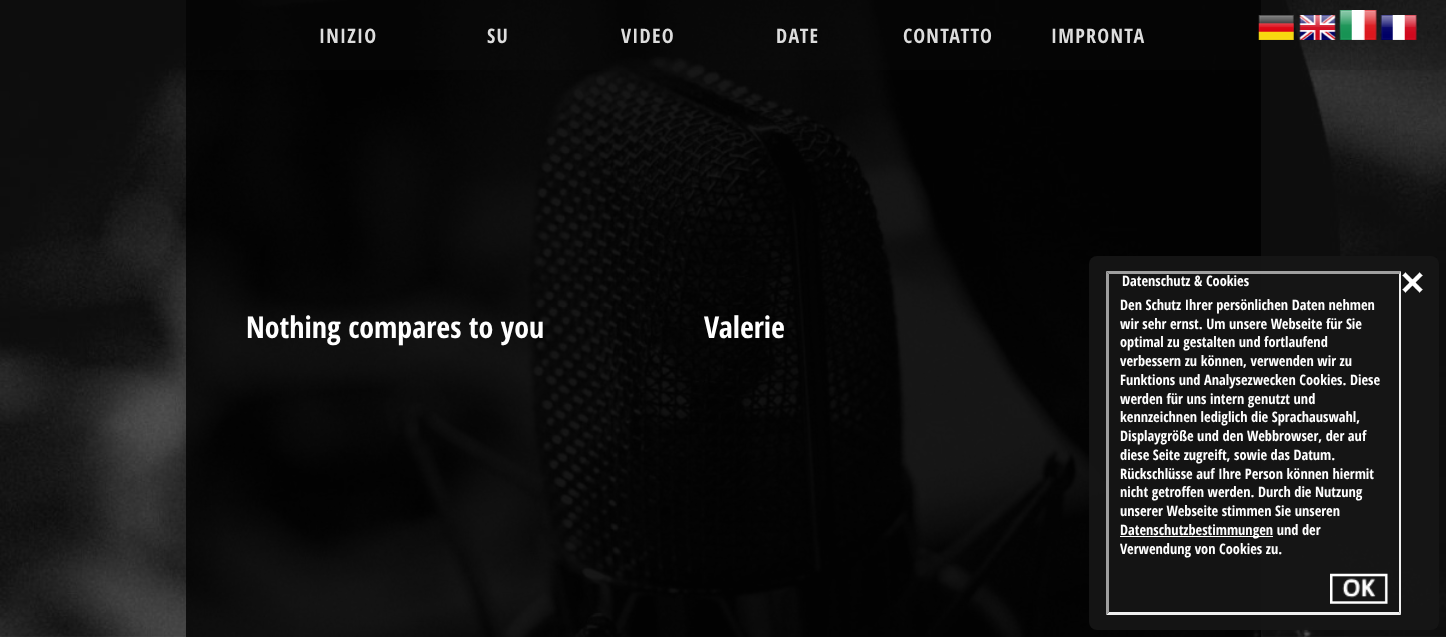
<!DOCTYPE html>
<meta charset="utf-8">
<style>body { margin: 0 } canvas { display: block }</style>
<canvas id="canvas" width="1446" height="637"></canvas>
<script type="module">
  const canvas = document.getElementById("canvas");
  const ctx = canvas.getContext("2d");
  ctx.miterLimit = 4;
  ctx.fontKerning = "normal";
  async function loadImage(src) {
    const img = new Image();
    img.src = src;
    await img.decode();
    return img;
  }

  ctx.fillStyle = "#ffffff";
  ctx.fillRect(0, 0, 1446, 637);
  ctx.drawImage(await loadImage("img1.png"), 0, 0, 1446, 637);
  ctx.fillStyle = "rgba(0, 0, 0, 0.8)";
  ctx.fillRect(186, 0, 1075, 637);
  ctx.fillStyle = "rgba(22, 22, 22, 0.2)";
  ctx.fillRect(186, 0, 1260, 70);
  ctx.letterSpacing = "1.25px";
  ctx.font = "bold 20px Open Sans Condensed";
  ctx.fillStyle = "#dddddd";
  ctx.fillText("INIZIO", 319, 43);
  ctx.fillText("SU", 487, 43);
  ctx.fillText("VIDEO", 621, 43);
  ctx.fillText("DATE", 776, 43);
  ctx.fillText("CONTATTO", 903, 43);
  ctx.fillText("IMPRONTA", 1051, 43);
  ctx.drawImage(await loadImage("img2.png"), 1258, 15, 36, 25);
  ctx.drawImage(await loadImage("img3.png"), 1299, 15, 37, 25);
  ctx.drawImage(await loadImage("img4.png"), 1339, 10, 38, 30);
  ctx.drawImage(await loadImage("img5.png"), 1380, 15, 37, 25);
  ctx.letterSpacing = "0px";
  ctx.font = "bold 30px Open Sans Condensed";
  ctx.fillStyle = "#ffffff";
  ctx.fillText("Nothing compares to you", 246, 338);
  ctx.fillText("Valerie", 704, 338);
  ctx.fillStyle = "rgba(22, 22, 22, 0.9)";
  ctx.beginPath();
  ctx.roundRect(1089, 256, 350, 374, 8);
  ctx.fill();
  ctx.fillStyle = "#9f9f9f";
  ctx.beginPath();
  ctx.moveTo(1106, 271);
  ctx.lineTo(1401, 271);
  ctx.lineTo(1399, 274);
  ctx.lineTo(1109, 274);
  ctx.closePath();
  ctx.fill();
  ctx.fillStyle = "#efefef";
  ctx.beginPath();
  ctx.moveTo(1401, 271);
  ctx.lineTo(1401, 615);
  ctx.lineTo(1399, 612);
  ctx.lineTo(1399, 274);
  ctx.closePath();
  ctx.fill();
  ctx.beginPath();
  ctx.moveTo(1401, 615);
  ctx.lineTo(1106, 615);
  ctx.lineTo(1109, 612);
  ctx.lineTo(1399, 612);
  ctx.closePath();
  ctx.fill();
  ctx.fillStyle = "#9f9f9f";
  ctx.beginPath();
  ctx.moveTo(1106, 615);
  ctx.lineTo(1106, 271);
  ctx.lineTo(1109, 274);
  ctx.lineTo(1109, 612);
  ctx.closePath();
  ctx.fill();
  ctx.font = "bold 14.4px Open Sans Condensed";
  ctx.fillStyle = "#ffffff";
  ctx.fillText("Datenschutz & Cookies", 1122, 286);
  ctx.fillText("Den Schutz Ihrer persönlichen Daten nehmen", 1120, 310);
  ctx.fillText("wir sehr ernst. Um unsere Webseite für Sie", 1120, 329);
  ctx.fillText("optimal zu gestalten und fortlaufend", 1120, 347);
  ctx.fillText("verbessern zu können, verwenden wir zu", 1120, 366);
  ctx.fillText("Funktions und Analysezwecken Cookies. Diese", 1120, 385);
  ctx.fillText("werden für uns intern genutzt und", 1120, 404);
  ctx.fillText("kennzeichnen lediglich die Sprachauswahl,", 1120, 422);
  ctx.fillText("Displaygröße und den Webbrowser, der auf", 1120, 441);
  ctx.fillText("diese Seite zugreift, sowie das Datum.", 1120, 460);
  ctx.fillText("Rückschlüsse auf Ihre Person können hiermit", 1120, 479);
  ctx.fillText("nicht getroffen werden. Durch die Nutzung", 1120, 497);
  ctx.fillText("unserer Webseite stimmen Sie unseren", 1120, 516);
  ctx.fillRect(1120, 536, 153, 1);
  ctx.fillText("Datenschutzbestimmungen und der", 1120, 535);
  ctx.fillText("Verwendung von Cookies zu.", 1120, 554);
  ctx.drawImage(await loadImage("img6.png"), 1330, 573, 58, 31);
  ctx.drawImage(await loadImage("img7.png"), 1402, 272, 21, 21);
</script>
